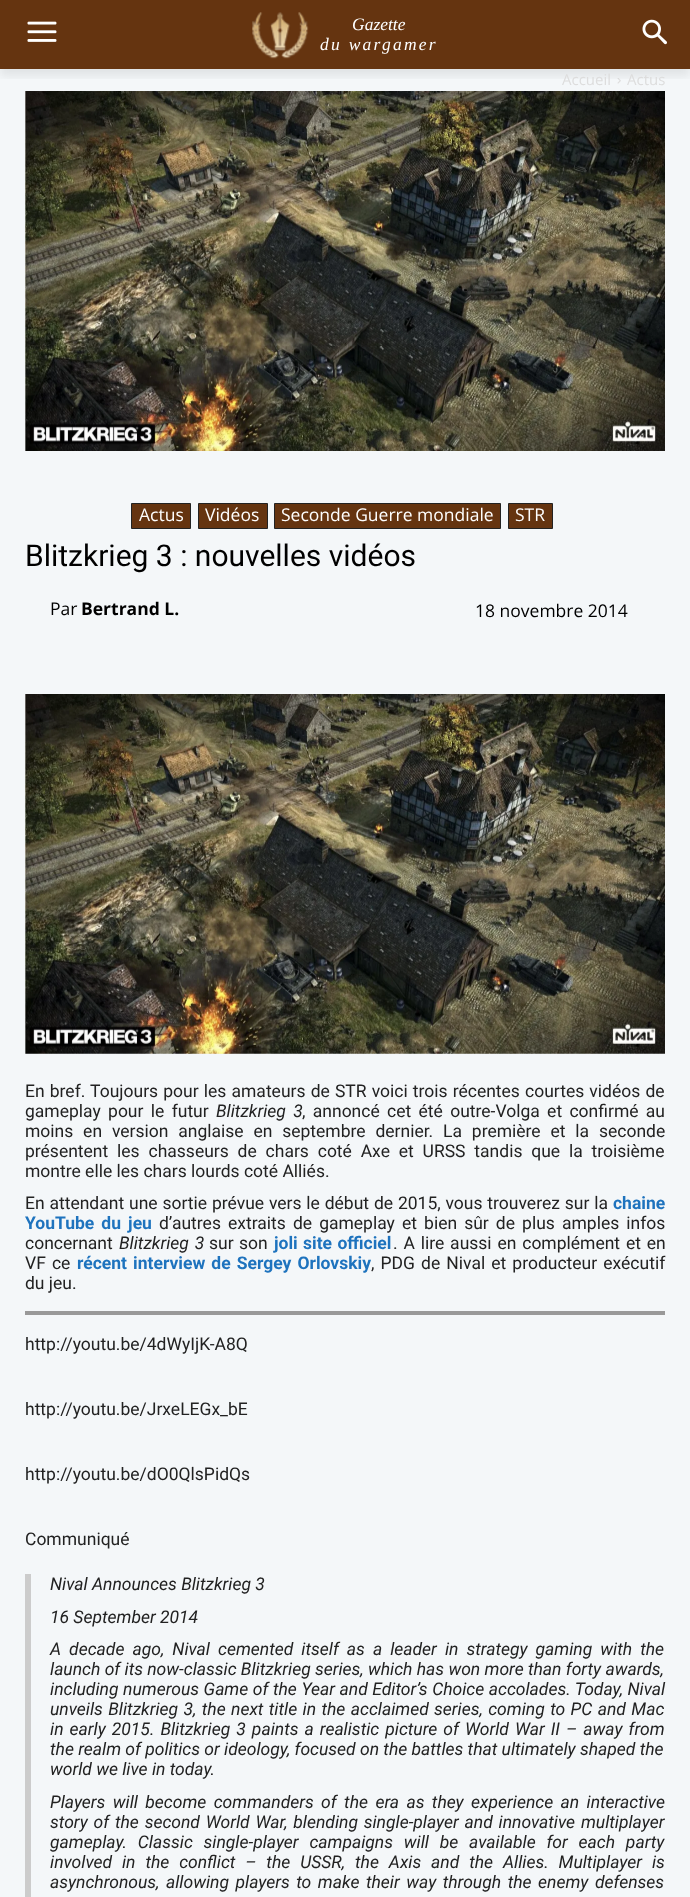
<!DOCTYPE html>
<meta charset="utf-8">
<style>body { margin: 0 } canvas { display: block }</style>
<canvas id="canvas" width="690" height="1897"></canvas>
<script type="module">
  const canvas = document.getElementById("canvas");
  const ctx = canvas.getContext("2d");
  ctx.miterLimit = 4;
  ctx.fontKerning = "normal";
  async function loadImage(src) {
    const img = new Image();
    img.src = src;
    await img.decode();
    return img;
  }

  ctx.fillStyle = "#f4f7f9";
  ctx.fillRect(0, 0, 690, 1897);
  ctx.fillStyle = "#653410";
  ctx.fillRect(0, 0, 690, 69);
  ctx.drawImage(await loadImage("img1.png"), 27, 21, 30, 21);
  ctx.drawImage(await loadImage("img2.png"), 252, 12, 57, 47);
  ctx.drawImage(await loadImage("img3.png"), 642, 19, 25, 26);
  ctx.drawImage(await loadImage("img4.png"), 617, 78, 4, 6);
  ctx.drawImage(await loadImage("img5.png"), 25, 91, 640, 360);
  ctx.save();
  ctx.beginPath();
  ctx.rect(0, 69, 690, 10);
  ctx.clip();
  ctx.fillStyle = "rgba(0, 0, 0, 0.08)";
  ctx.filter = "blur(5px)";
  ctx.beginPath();
  ctx.rect(0, 8, 690, 68);
  ctx.fill();
  ctx.filter = "none";
  ctx.restore();
  ctx.font = "italic 17.5px Liberation Serif";
  ctx.fillStyle = "#ffffff";
  ctx.fillText("Gazette", 352, 30);
  ctx.letterSpacing = "2.25px";
  ctx.fillText("du wargamer", 320, 50);
  ctx.letterSpacing = "0px";
  ctx.font = "15px Open Sans";
  ctx.fillStyle = "#dddddd";
  ctx.fillText("Accueil", 562, 85);
  ctx.fillText("Actus", 627, 85);
  ctx.fillStyle = "#653410";
  ctx.beginPath();
  ctx.rect(131.5, 503.5, 59, 25);
  ctx.fill();
  ctx.strokeStyle = "#222222";
  ctx.stroke();
  ctx.font = "17.5px Open Sans";
  ctx.fillStyle = "#ffffff";
  ctx.fillText("Actus", 139, 521);
  ctx.fillStyle = "#653410";
  ctx.beginPath();
  ctx.rect(198.5, 503.5, 69, 25);
  ctx.fill();
  ctx.stroke();
  ctx.fillStyle = "#ffffff";
  ctx.fillText("Vidéos", 205, 521);
  ctx.fillStyle = "#653410";
  ctx.beginPath();
  ctx.rect(274.5, 503.5, 226, 25);
  ctx.fill();
  ctx.stroke();
  ctx.fillStyle = "#ffffff";
  ctx.fillText("Seconde Guerre mondiale", 281, 521);
  ctx.fillStyle = "#653410";
  ctx.beginPath();
  ctx.rect(508.5, 503.5, 44, 25);
  ctx.fill();
  ctx.stroke();
  ctx.fillStyle = "#ffffff";
  ctx.fillText("STR", 515, 521);
  ctx.font = "30px Roboto";
  ctx.fillStyle = "#000000";
  ctx.fillText("Blitzkrieg 3 : nouvelles vidéos", 25, 566);
  ctx.font = "17.5px Open Sans";
  ctx.fillText("Par", 50, 615);
  ctx.font = "bold 17.5px Open Sans";
  ctx.fillText("Bertrand L.", 81, 615);
  ctx.font = "17.5px Open Sans";
  ctx.fillText("18 novembre 2014", 475, 617);
  ctx.drawImage(await loadImage("img6.png"), 25, 694, 640, 360);
  ctx.wordSpacing = "0.8px";
  ctx.font = "17.5px Roboto";
  ctx.fillStyle = "#222222";
  ctx.fillText("En bref. Toujours pour les amateurs de STR voici trois récentes courtes vidéos de", 25, 1097);
  ctx.wordSpacing = "3px";
  ctx.fillText("gameplay pour le futur", 25, 1117);
  ctx.font = "italic 17.5px Roboto";
  ctx.fillText("Blitzkrieg 3", 216, 1117);
  ctx.font = "17.5px Roboto";
  ctx.fillText(", annoncé cet été outre-Volga et confirmé au", 302, 1117);
  ctx.wordSpacing = "5.5px";
  ctx.fillText("moins en version anglaise en septembre dernier. La première et la seconde", 25, 1137);
  ctx.wordSpacing = "4.5px";
  ctx.fillText("présentent les chasseurs de chars coté Axe et URSS tandis que la troisième", 25, 1157);
  ctx.wordSpacing = "0px";
  ctx.fillText("montre elle les chars lourds coté Alliés.", 25, 1177);
  ctx.wordSpacing = "0.5px";
  ctx.fillText("En attendant une sortie prévue vers le début de 2015, vous trouverez sur la", 25, 1209);
  ctx.wordSpacing = "0px";
  ctx.font = "bold 17.5px Roboto";
  ctx.fillStyle = "#1e73be";
  ctx.fillText("chaine", 613, 1209);
  ctx.wordSpacing = "2.75px";
  ctx.fillText("YouTube du jeu", 25, 1229);
  ctx.font = "17.5px Roboto";
  ctx.fillStyle = "#222222";
  ctx.fillText("d’autres extraits de gameplay et bien sûr de plus amples infos", 159, 1229);
  ctx.wordSpacing = "0px";
  ctx.fillText("concernant", 25, 1249);
  ctx.wordSpacing = "1.5px";
  ctx.font = "italic 17.5px Roboto";
  ctx.fillText("Blitzkrieg 3", 119, 1249);
  ctx.wordSpacing = "1px";
  ctx.font = "17.5px Roboto";
  ctx.fillText("sur son", 209, 1249);
  ctx.font = "bold 17.5px Roboto";
  ctx.fillStyle = "#1e73be";
  ctx.fillText("joli site officiel", 274, 1249);
  ctx.wordSpacing = "1.5px";
  ctx.font = "17.5px Roboto";
  ctx.fillStyle = "#222222";
  ctx.fillText(". A lire aussi en complément et en", 393, 1249);
  ctx.wordSpacing = "1.75px";
  ctx.fillText("VF ce", 25, 1269);
  ctx.font = "bold 17.5px Roboto";
  ctx.fillStyle = "#1e73be";
  ctx.fillText("récent interview de Sergey Orlovskiy", 77, 1269);
  ctx.font = "17.5px Roboto";
  ctx.fillStyle = "#222222";
  ctx.fillText(", PDG de Nival et producteur exécutif", 371, 1269);
  ctx.wordSpacing = "0px";
  ctx.fillText("du jeu.", 25, 1289);
  ctx.fillStyle = "#999999";
  ctx.fillRect(25, 1311, 640, 4);
  ctx.fillStyle = "#222222";
  ctx.fillText("http://youtu.be/4dWyIjK-A8Q", 25, 1350);
  ctx.fillText("http://youtu.be/JrxeLEGx_bE", 25, 1415);
  ctx.fillText("http://youtu.be/dO0QlsPidQs", 25, 1480);
  ctx.fillText("Communiqué", 25, 1545);
  ctx.fillStyle = "#cccccc";
  ctx.fillRect(25, 1574, 6, 323);
  ctx.font = "italic 17.5px Roboto";
  ctx.fillStyle = "#222222";
  ctx.fillText("Nival Announces Blitzkrieg 3", 50, 1590);
  ctx.fillText("16 September 2014", 50, 1623);
  ctx.wordSpacing = "3.75px";
  ctx.fillText("A decade ago, Nival cemented itself as a leader in strategy gaming with the", 50, 1655);
  ctx.wordSpacing = "0px";
  ctx.fillText("launch of its now-classic Blitzkrieg series, which has won more than forty awards,", 50, 1675);
  ctx.wordSpacing = "0.25px";
  ctx.fillText("including numerous Game of the Year and Editor’s Choice accolades. Today, Nival", 50, 1695);
  ctx.wordSpacing = "1.1px";
  ctx.fillText("unveils Blitzkrieg 3, the next title in the acclaimed series, coming to PC and Mac", 50, 1715);
  ctx.wordSpacing = "1.75px";
  ctx.fillText("in early 2015. Blitzkrieg 3 paints a realistic picture of World War II – away from", 50, 1735);
  ctx.wordSpacing = "0px";
  ctx.fillText("the realm of politics or ideology, focused on the battles that ultimately shaped the", 50, 1755);
  ctx.fillText("world we live in today.", 50, 1775);
  ctx.wordSpacing = "3.1px";
  ctx.fillText("Players will become commanders of the era as they experience an interactive", 50, 1808);
  ctx.wordSpacing = "1.5px";
  ctx.fillText("story of the second World War, blending single-player and innovative multiplayer", 50, 1828);
  ctx.wordSpacing = "6.5px";
  ctx.fillText("gameplay. Classic single-player campaigns will be available for each party", 50, 1848);
  ctx.wordSpacing = "5.6px";
  ctx.fillText("involved in the conflict – the USSR, the Axis and the Allies. Multiplayer is", 50, 1868);
  ctx.wordSpacing = "2.25px";
  ctx.fillText("asynchronous, allowing players to make their way through the enemy defenses", 50, 1888);
</script>
